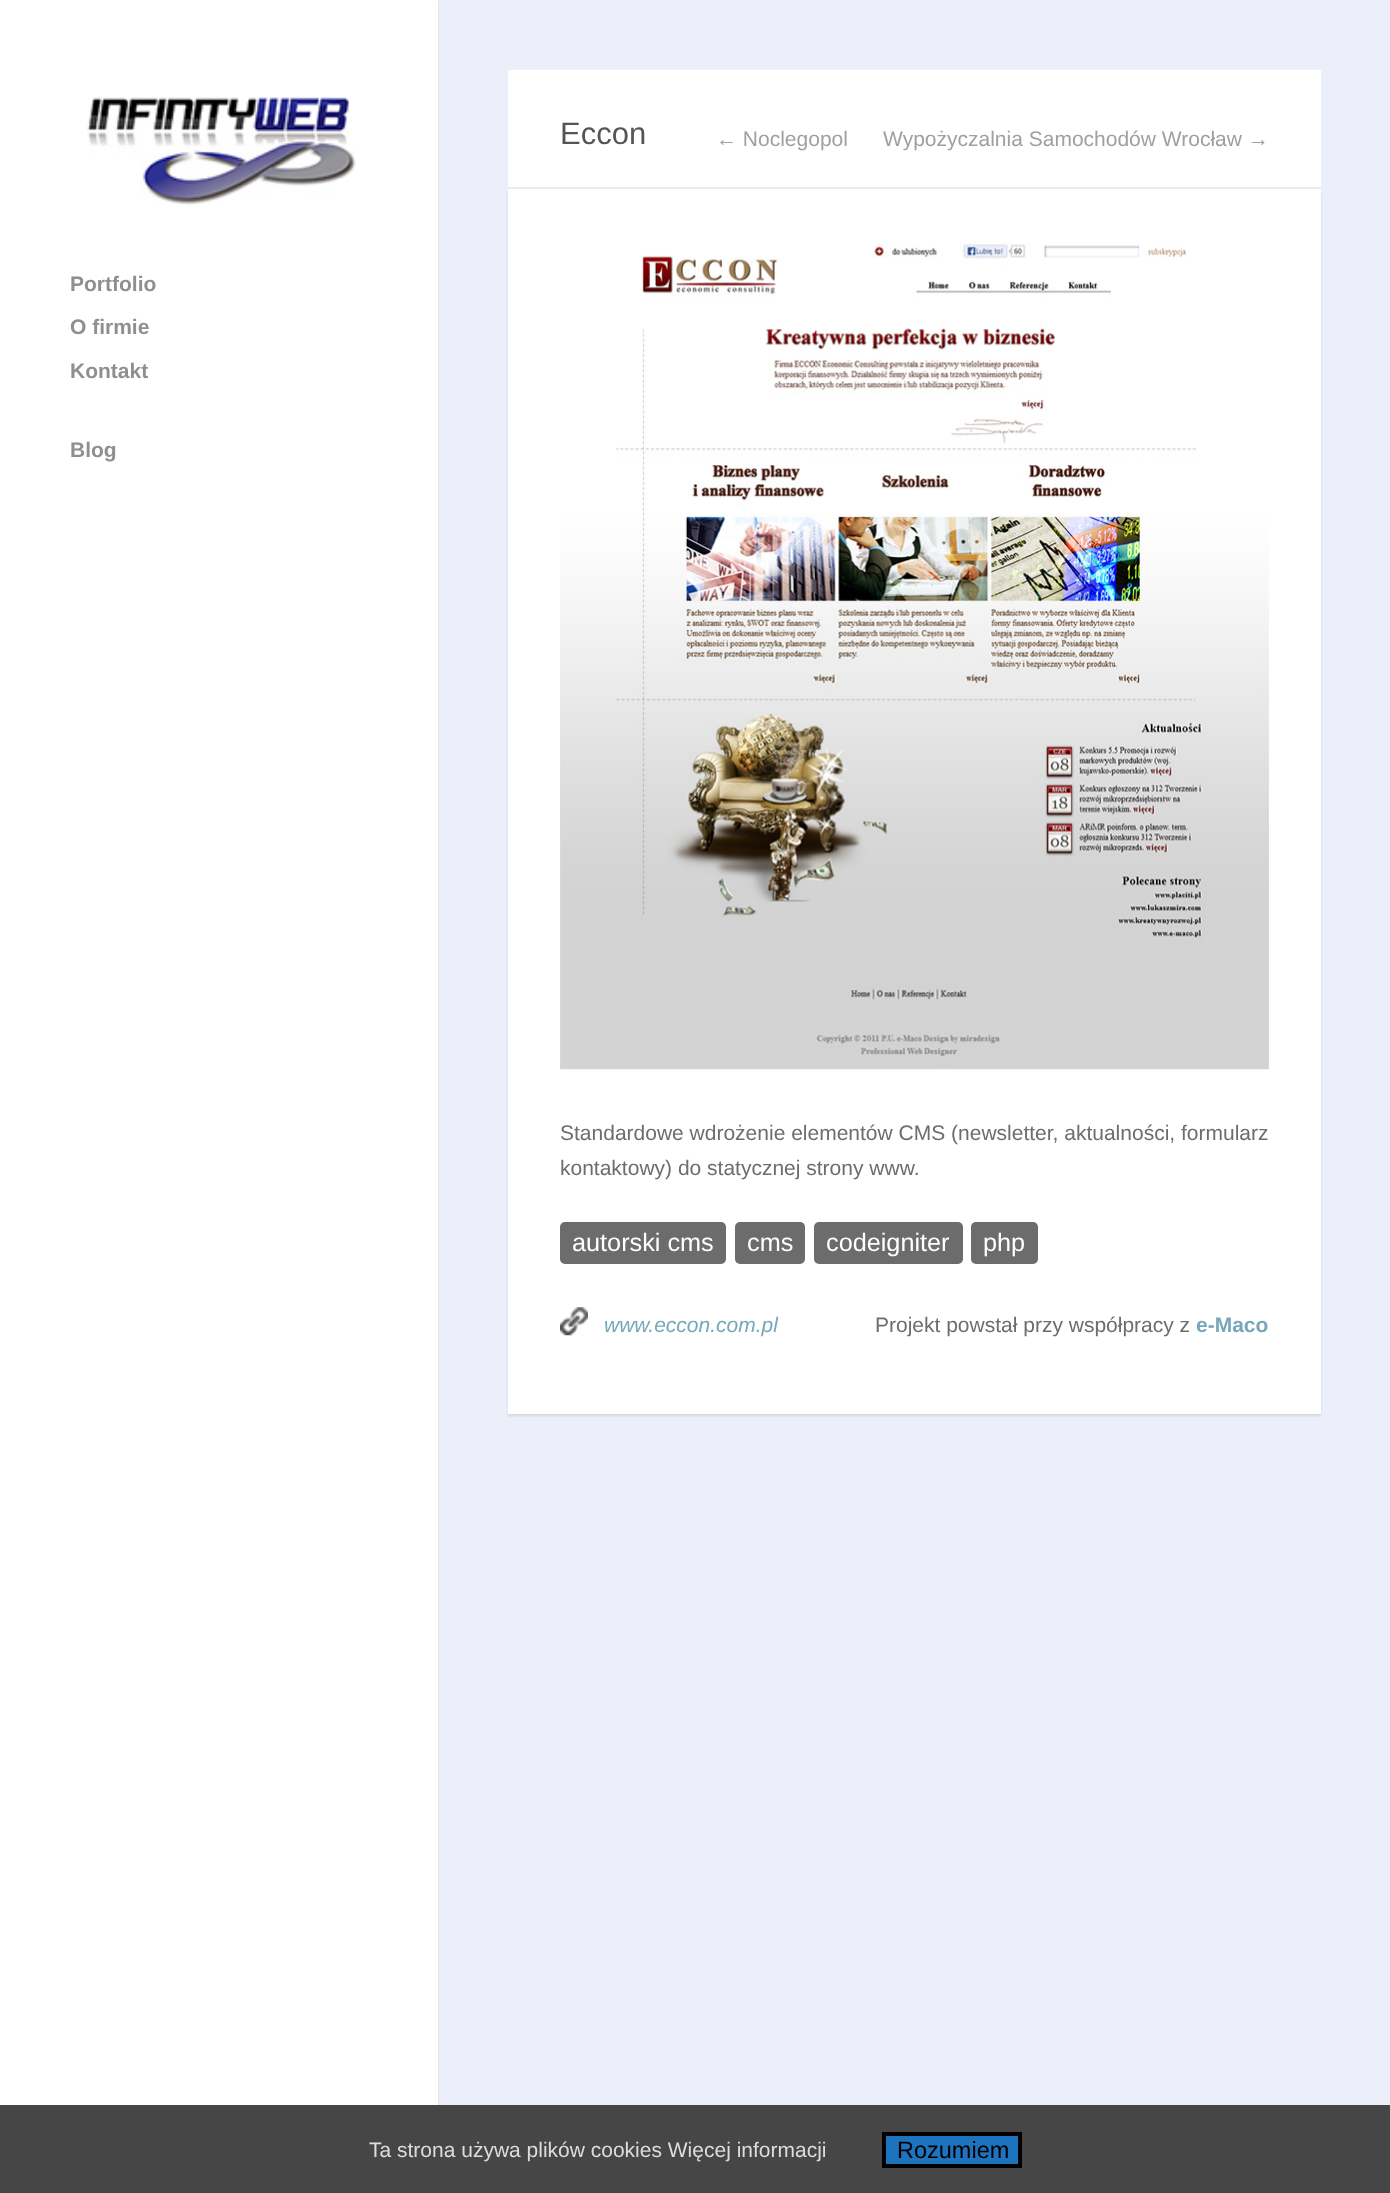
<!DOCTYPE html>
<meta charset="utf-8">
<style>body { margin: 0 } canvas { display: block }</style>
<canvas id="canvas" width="1390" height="2193"></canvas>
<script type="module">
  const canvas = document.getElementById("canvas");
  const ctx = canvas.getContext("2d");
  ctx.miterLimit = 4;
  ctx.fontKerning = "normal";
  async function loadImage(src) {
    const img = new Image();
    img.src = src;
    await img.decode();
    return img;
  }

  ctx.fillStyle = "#eceff9";
  ctx.fillRect(0, 0, 1390, 2193);
  ctx.fillStyle = "rgba(0, 0, 0, 0.1)";
  ctx.filter = "blur(1px)";
  ctx.beginPath();
  ctx.rect(0, 2, 438, 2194);
  ctx.fill();
  ctx.filter = "none";
  ctx.fillStyle = "#ffffff";
  ctx.fillRect(0, 0, 438, 2105);
  ctx.drawImage(await loadImage("img1.png"), 87, 97, 269, 109);
  ctx.font = "bold 21px Liberation Sans";
  ctx.fillStyle = "#8f8f8f";
  ctx.fillText("Portfolio", 70, 291);
  ctx.fillText("O firmie", 70, 334);
  ctx.fillText("Kontakt", 70, 378);
  ctx.fillText("Blog", 70, 457);
  ctx.fillStyle = "#ffffff";
  ctx.fillRect(508, 70, 813, 117);
  ctx.fillStyle = "#ebebeb";
  ctx.fillRect(508, 187, 813, 2);
  ctx.font = "31px Liberation Sans";
  ctx.fillStyle = "#555555";
  ctx.fillText("Eccon", 560, 144);
  ctx.font = "21px Liberation Sans";
  ctx.fillStyle = "#a0a0a0";
  ctx.fillText("← Noclegopol", 716, 146);
  ctx.fillText("Wypożyczalnia Samochodów Wrocław →", 883, 146);
  ctx.fillStyle = "rgba(0, 0, 0, 0.1)";
  ctx.filter = "blur(1px)";
  ctx.beginPath();
  ctx.rect(508, 191, 813, 1225);
  ctx.fill();
  ctx.filter = "none";
  ctx.fillStyle = "#ffffff";
  ctx.fillRect(508, 189, 813, 1225);
  ctx.drawImage(await loadImage("img2.png"), 560, 242, 709, 828);
  ctx.fillStyle = "#6d6d6b";
  ctx.fillText("Standardowe wdrożenie elementów CMS (newsletter, aktualności, formularz", 560, 1140);
  ctx.fillText("kontaktowy) do statycznej strony www.", 560, 1175);
  ctx.fillStyle = "#6c6c6c";
  ctx.beginPath();
  ctx.roundRect(560, 1222, 166, 42, 5);
  ctx.fill();
  ctx.font = "25.25px Liberation Sans";
  ctx.fillStyle = "#ffffff";
  ctx.fillText("autorski cms", 572, 1251);
  ctx.fillStyle = "#6c6c6c";
  ctx.beginPath();
  ctx.roundRect(735, 1222, 70, 42, 5);
  ctx.fill();
  ctx.fillStyle = "#ffffff";
  ctx.fillText("cms", 747, 1251);
  ctx.fillStyle = "#6c6c6c";
  ctx.beginPath();
  ctx.roundRect(814, 1222, 149, 42, 5);
  ctx.fill();
  ctx.fillStyle = "#ffffff";
  ctx.fillText("codeigniter", 826, 1251);
  ctx.fillStyle = "#6c6c6c";
  ctx.beginPath();
  ctx.roundRect(971, 1222, 67, 42, 5);
  ctx.fill();
  ctx.fillStyle = "#ffffff";
  ctx.fillText("php", 983, 1251);
  ctx.drawImage(await loadImage("img3.png"), 560, 1307, 28, 29);
  ctx.font = "italic 21px Liberation Sans";
  ctx.fillStyle = "#77a7b9";
  ctx.fillText("www.eccon.com.pl", 604, 1332);
  ctx.font = "21px Liberation Sans";
  ctx.fillStyle = "#6d6d6b";
  ctx.fillText("Projekt powstał przy współpracy z", 875, 1332);
  ctx.font = "bold 21px Liberation Sans";
  ctx.fillStyle = "#77a7b9";
  ctx.fillText("e-Maco", 1196, 1332);
  ctx.fillStyle = "#464646";
  ctx.fillRect(0, 2105, 1390, 88);
  ctx.font = "21px Liberation Sans";
  ctx.fillStyle = "#dddddd";
  ctx.fillText("Ta strona używa plików cookies Więcej informacji", 369, 2157);
  ctx.fillStyle = "#1e73be";
  ctx.beginPath();
  ctx.rect(884, 2134, 136, 32);
  ctx.fill();
  ctx.strokeStyle = "#000000";
  ctx.lineWidth = 4;
  ctx.stroke();
  ctx.font = "23.5px Liberation Sans";
  ctx.fillStyle = "#000000";
  ctx.fillText("Rozumiem", 897, 2158);
</script>
